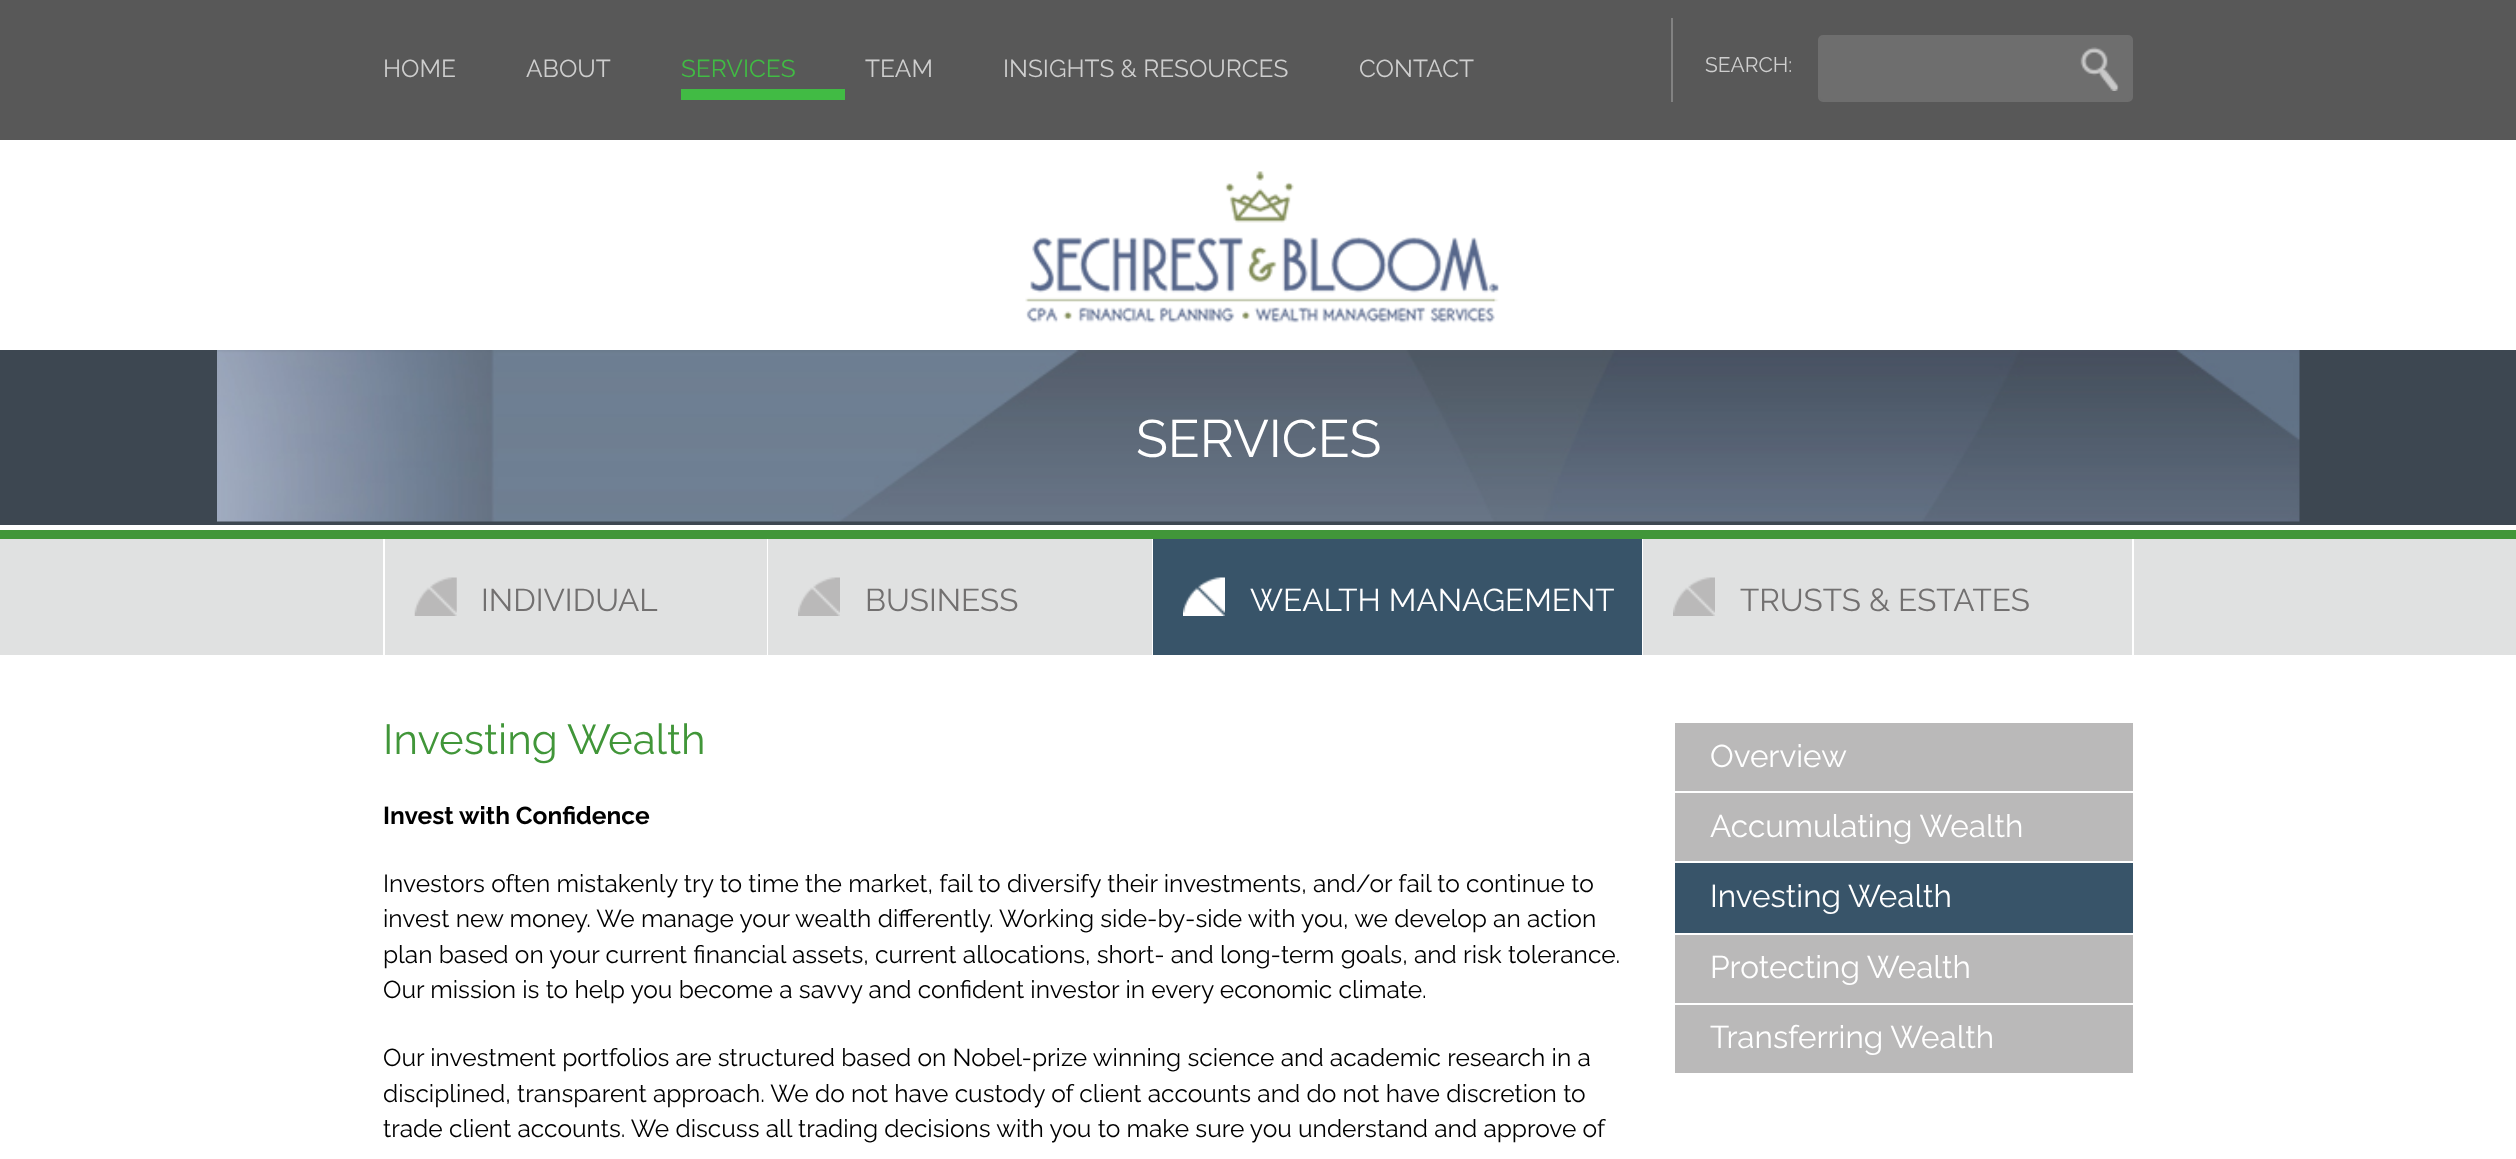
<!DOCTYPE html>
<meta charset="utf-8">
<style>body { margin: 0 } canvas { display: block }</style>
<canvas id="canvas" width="2516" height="1159"></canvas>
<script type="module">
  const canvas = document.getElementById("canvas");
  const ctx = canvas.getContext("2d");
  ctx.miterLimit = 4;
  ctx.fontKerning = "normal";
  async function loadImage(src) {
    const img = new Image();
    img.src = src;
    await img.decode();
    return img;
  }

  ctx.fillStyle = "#ffffff";
  ctx.fillRect(0, 0, 2516, 1159);
  ctx.fillStyle = "#585858";
  ctx.fillRect(0, 0, 2516, 140);
  ctx.font = "24.5px Raleway";
  ctx.fillStyle = "#cecece";
  ctx.fillText("HOME", 383, 77);
  ctx.fillText("ABOUT", 526, 77);
  ctx.fillStyle = "#41bb44";
  ctx.fillText("SERVICES", 681, 77);
  ctx.fillRect(681, 89, 164, 11);
  ctx.fillStyle = "#cecece";
  ctx.fillText("TEAM", 865, 77);
  ctx.fillText("INSIGHTS & RESOURCES", 1003, 77);
  ctx.fillText("CONTACT", 1359, 77);
  ctx.fillStyle = "#828282";
  ctx.fillRect(1671, 18, 2, 84);
  ctx.fillStyle = "#6e6e6e";
  ctx.beginPath();
  ctx.roundRect(1819, 36, 313, 65, 4);
  ctx.fill();
  ctx.strokeStyle = "#6e6e6e";
  ctx.lineWidth = 2;
  ctx.stroke();
  ctx.font = "21px Raleway";
  ctx.fillStyle = "#cecece";
  ctx.fillText("SEARCH:", 1705, 72);
  ctx.drawImage(await loadImage("img1.png"), 2080, 47, 39, 44);
  ctx.drawImage(await loadImage("img2.png"), 1025, 171, 474, 152);
  ctx.fillStyle = "#3d4751";
  ctx.fillRect(0, 350, 2516, 175);
  ctx.drawImage(await loadImage("img3.png"), 217, 350, 2083, 172);
  ctx.font = "52.5px Raleway";
  ctx.fillStyle = "#ffffff";
  ctx.fillText("SERVICES", 1136, 457);
  ctx.fillStyle = "#419639";
  ctx.fillRect(0, 530, 2516, 9);
  ctx.fillStyle = "#e0e1e1";
  ctx.fillRect(0, 539, 2516, 116);
  ctx.fillStyle = "#ffffff";
  ctx.fillRect(767, 539, 1, 116);
  ctx.fillRect(383, 539, 2, 116);
  ctx.drawImage(await loadImage("img4.png"), 414, 577, 43, 39);
  ctx.font = "31.5px Raleway";
  ctx.fillStyle = "#727070";
  ctx.fillText("INDIVIDUAL", 481, 611);
  ctx.fillStyle = "#ffffff";
  ctx.fillRect(1152, 539, 1, 116);
  ctx.drawImage(await loadImage("img5.png"), 798, 577, 42, 39);
  ctx.fillStyle = "#727070";
  ctx.fillText("BUSINESS", 865, 611);
  ctx.fillStyle = "#385469";
  ctx.fillRect(1153, 539, 489, 116);
  ctx.fillStyle = "#ffffff";
  ctx.fillRect(1642, 539, 1, 116);
  ctx.drawImage(await loadImage("img6.png"), 1183, 577, 42, 39);
  ctx.fillText("WEALTH MANAGEMENT", 1250, 611);
  ctx.fillRect(2132, 539, 2, 116);
  ctx.drawImage(await loadImage("img5.png"), 1673, 577, 42, 39);
  ctx.fillStyle = "#727070";
  ctx.fillText("TRUSTS & ESTATES", 1740, 611);
  ctx.font = "42px Raleway";
  ctx.fillStyle = "#419639";
  ctx.fillText("Investing Wealth", 383, 754);
  ctx.font = "bold 24.5px Raleway";
  ctx.fillStyle = "#000000";
  ctx.fillText("Invest with Confidence", 383, 824);
  ctx.font = "24.5px Raleway";
  ctx.fillText("Investors often mistakenly try to time the market, fail to diversify their investments, and/or fail to continue to", 383, 892);
  ctx.fillText("invest new money. We manage your wealth differently. Working side-by-side with you, we develop an action", 383, 927);
  ctx.fillText("plan based on your current financial assets, current allocations, short- and long-term goals, and risk tolerance.", 383, 963);
  ctx.fillText("Our mission is to help you become a savvy and confident investor in every economic climate.", 383, 998);
  ctx.fillText("Our investment portfolios are structured based on Nobel-prize winning science and academic research in a", 383, 1066);
  ctx.fillText("disciplined, transparent approach. We do not have custody of client accounts and do not have discretion to", 383, 1102);
  ctx.fillText("trade client accounts. We discuss all trading decisions with you to make sure you understand and approve of", 383, 1137);
  ctx.fillStyle = "#bab9b9";
  ctx.fillRect(1675, 723, 458, 68);
  ctx.font = "31.5px Raleway";
  ctx.fillStyle = "#ffffff";
  ctx.fillText("Overview", 1710, 767);
  ctx.fillStyle = "#bab9b9";
  ctx.fillRect(1675, 793, 458, 68);
  ctx.fillStyle = "#ffffff";
  ctx.fillText("Accumulating Wealth", 1710, 837);
  ctx.fillStyle = "#385469";
  ctx.fillRect(1675, 863, 458, 70);
  ctx.fillStyle = "#ffffff";
  ctx.fillText("Investing Wealth", 1710, 907);
  ctx.fillStyle = "#bab9b9";
  ctx.fillRect(1675, 935, 458, 68);
  ctx.fillStyle = "#ffffff";
  ctx.fillText("Protecting Wealth", 1710, 978);
  ctx.fillStyle = "#bab9b9";
  ctx.fillRect(1675, 1005, 458, 68);
  ctx.fillStyle = "#ffffff";
  ctx.fillText("Transferring Wealth", 1710, 1048);
</script>
